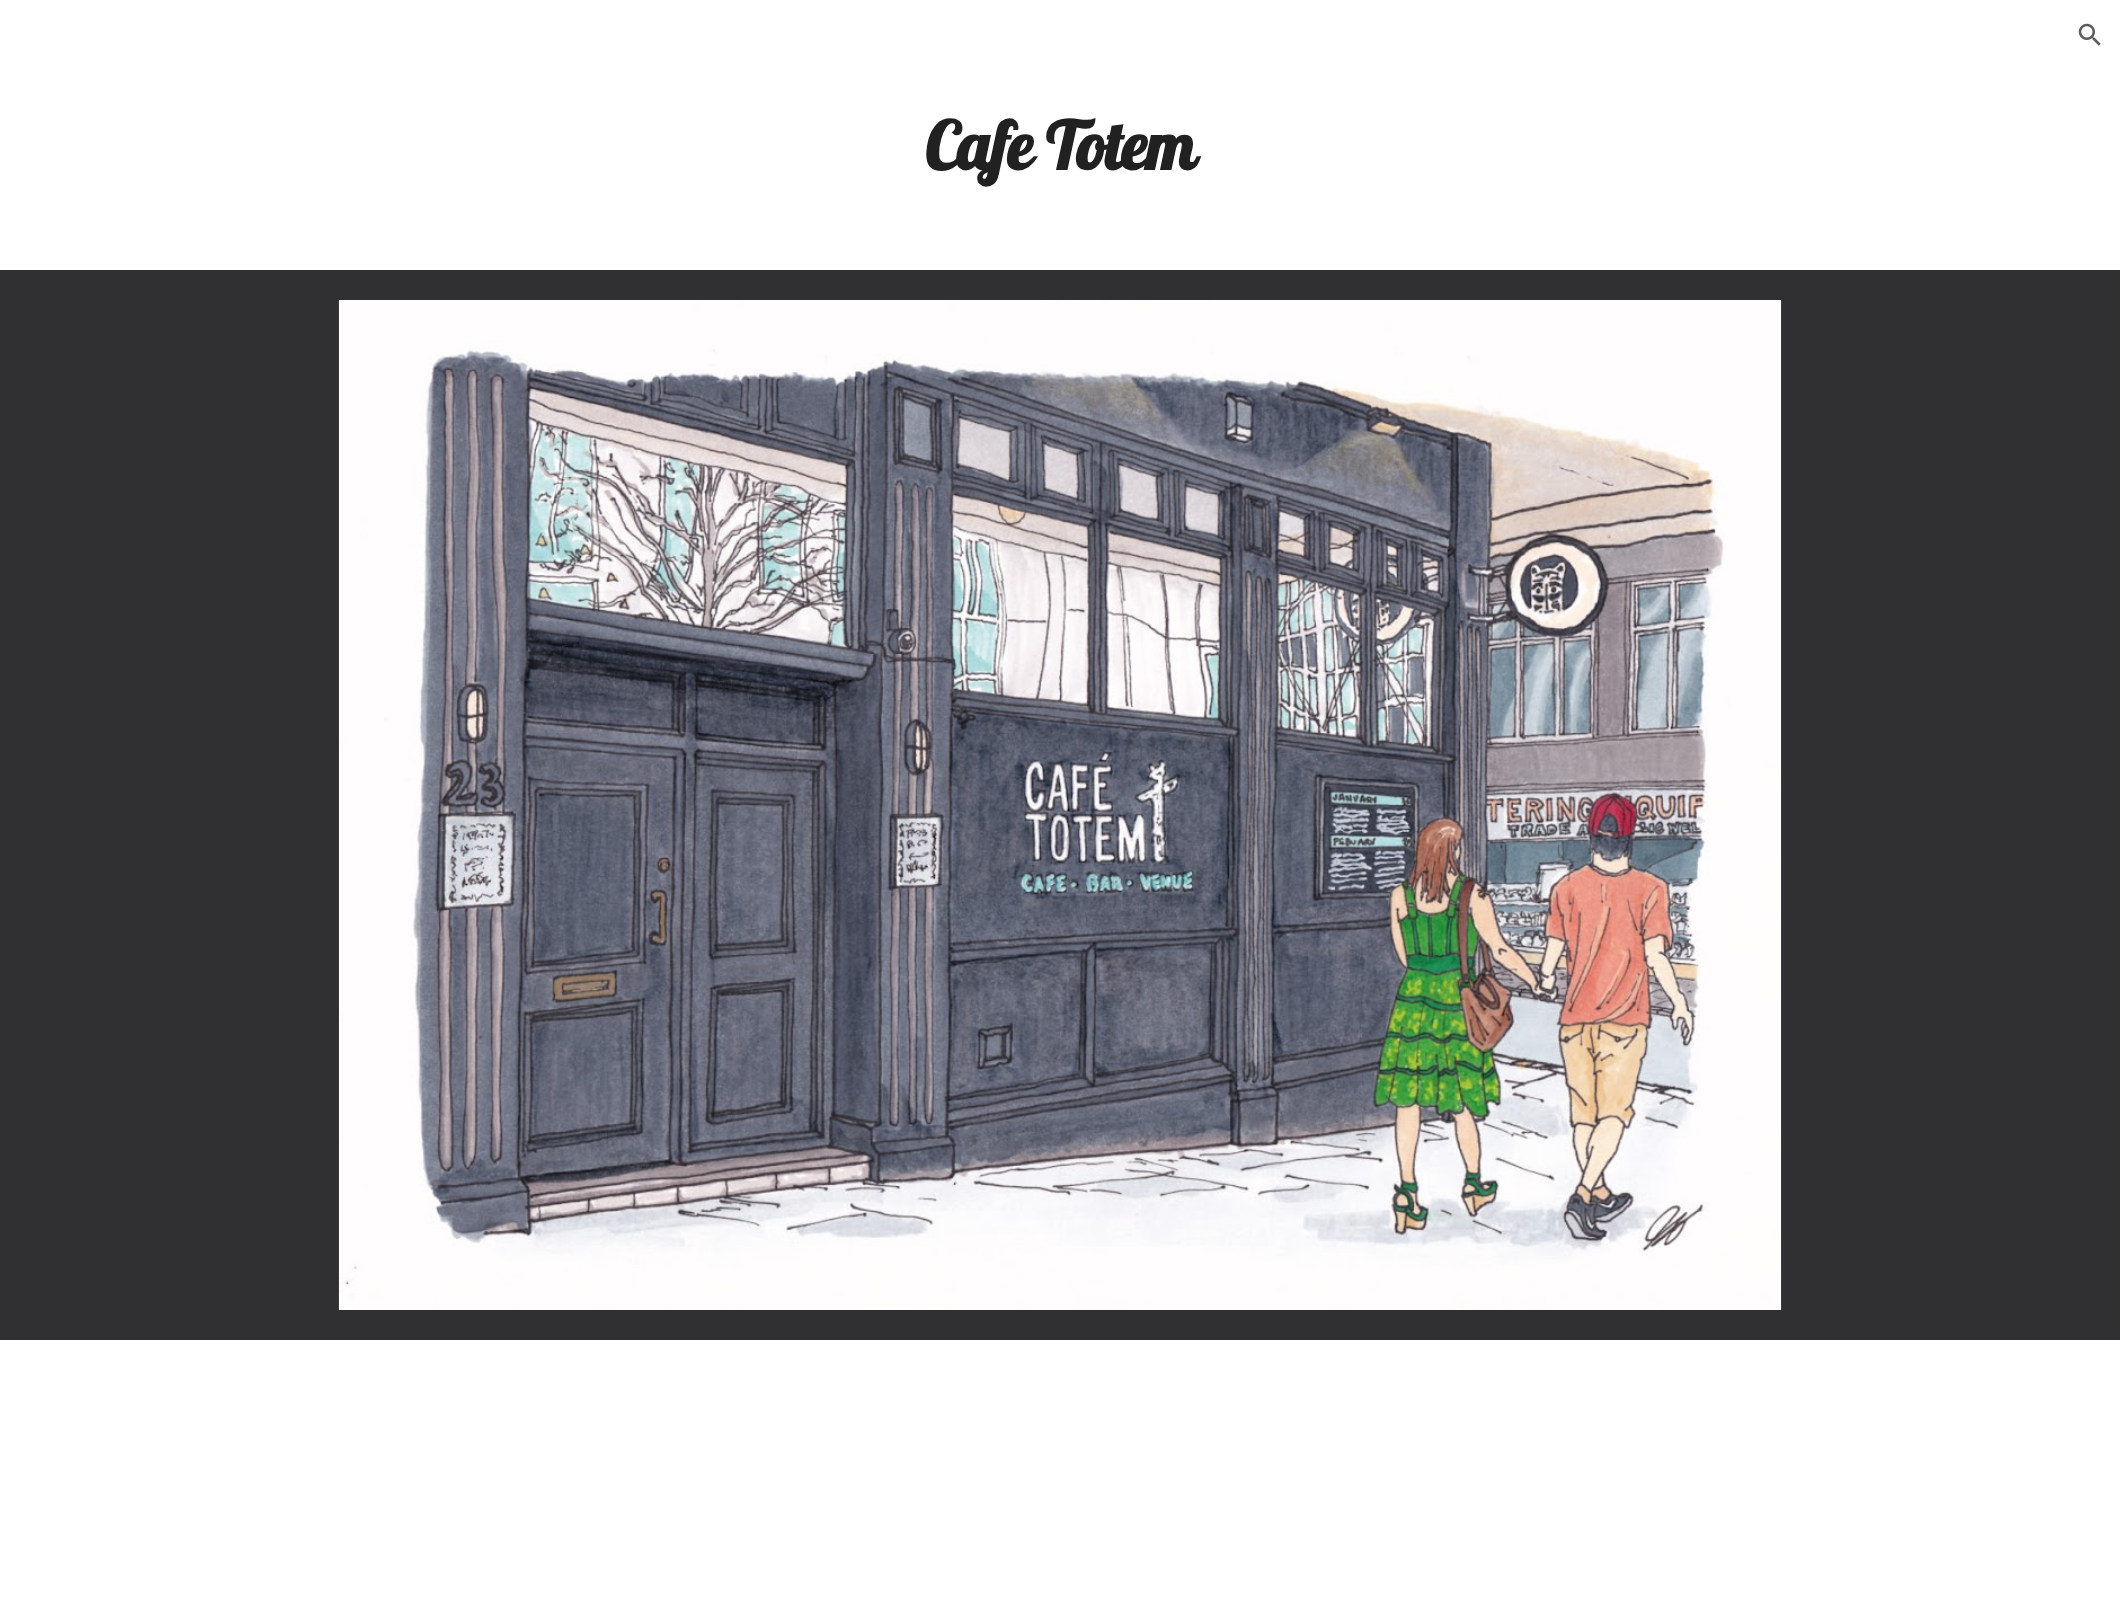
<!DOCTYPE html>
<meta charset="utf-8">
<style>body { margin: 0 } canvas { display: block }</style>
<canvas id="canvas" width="2120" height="1621"></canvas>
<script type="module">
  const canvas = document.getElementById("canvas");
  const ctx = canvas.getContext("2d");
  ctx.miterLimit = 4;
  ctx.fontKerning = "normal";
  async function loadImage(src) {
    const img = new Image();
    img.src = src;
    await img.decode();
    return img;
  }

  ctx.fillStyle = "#ffffff";
  ctx.fillRect(0, 0, 2120, 1621);
  ctx.drawImage(await loadImage("img1.png"), 2078, 23, 23, 23);
  ctx.letterSpacing = "-1px";
  ctx.font = "bold 66.5px Lobster";
  ctx.fillStyle = "#212121";
  ctx.fillText("Cafe Totem", 925, 170);
  ctx.fillStyle = "#303033";
  ctx.fillRect(0, 270, 2120, 1070);
  ctx.drawImage(await loadImage("img2.png"), 338, 300, 1444, 1010);
</script>
